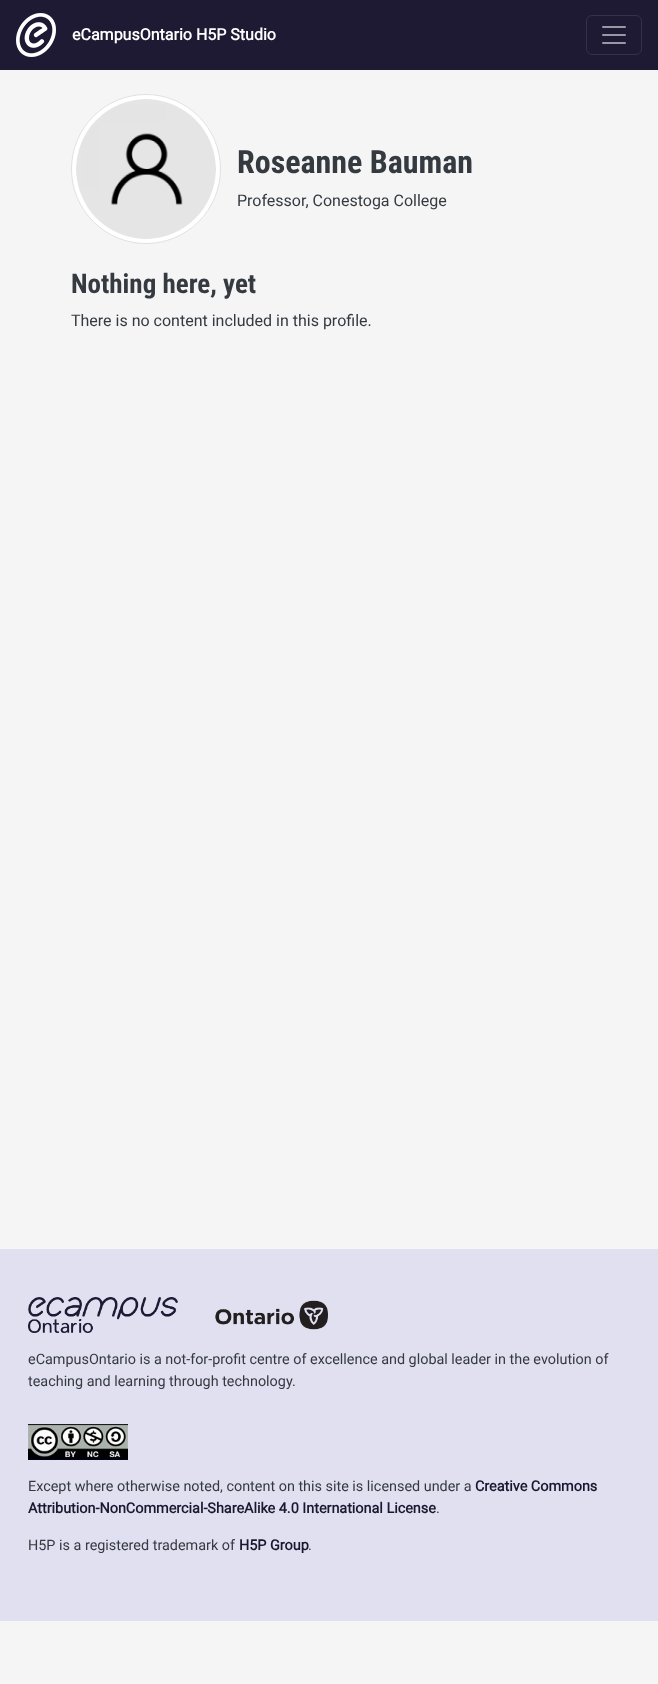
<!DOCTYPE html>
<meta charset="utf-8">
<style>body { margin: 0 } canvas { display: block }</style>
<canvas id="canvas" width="658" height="1684"></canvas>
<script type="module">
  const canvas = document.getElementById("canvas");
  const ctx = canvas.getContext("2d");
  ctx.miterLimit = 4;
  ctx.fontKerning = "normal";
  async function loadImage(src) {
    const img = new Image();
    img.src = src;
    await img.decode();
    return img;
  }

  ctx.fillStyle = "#f5f5f5";
  ctx.fillRect(0, 0, 658, 1684);
  ctx.fillStyle = "#1e1a34";
  ctx.fillRect(0, 0, 658, 70);
  ctx.drawImage(await loadImage("img1.png"), 16, 13, 40, 44);
  ctx.font = "bold 16px Roboto";
  ctx.fillStyle = "#ffffff";
  ctx.fillText("eCampusOntario H5P Studio", 72, 40);
  ctx.beginPath();
  ctx.roundRect(586.5, 15.5, 55, 39, 5.5);
  ctx.strokeStyle = "#353148";
  ctx.stroke();
  ctx.drawImage(await loadImage("img2.png"), 602, 26, 24, 18);
  ctx.beginPath();
  ctx.arc(146, 169, 74.5, 0, Math.PI * 2);
  ctx.fill();
  ctx.strokeStyle = "#dee2e6";
  ctx.stroke();
  ctx.drawImage(await loadImage("img3.png"), 76, 99, 140, 140);
  ctx.font = "bold 32px Roboto Condensed";
  ctx.fillStyle = "#343a40";
  ctx.fillText("Roseanne Bauman", 237, 173);
  ctx.font = "16px Roboto";
  ctx.fillText("Professor, Conestoga College", 237, 206);
  ctx.font = "bold 27px Roboto Condensed";
  ctx.fillText("Nothing here, yet", 71, 293);
  ctx.font = "16px Roboto";
  ctx.fillText("There is no content included in this profile.", 71, 326);
  ctx.fillStyle = "#e0e0f0";
  ctx.fillRect(0, 1249, 658, 372);
  ctx.drawImage(await loadImage("img4.png"), 28, 1297, 300, 36);
  ctx.font = "14.4px Roboto";
  ctx.fillStyle = "#343a40";
  ctx.fillText("eCampusOntario is a not-for-profit centre of excellence and global leader in the evolution of", 28, 1364);
  ctx.fillText("teaching and learning through technology.", 28, 1386);
  ctx.drawImage(await loadImage("img5.png"), 28, 1424, 100, 36);
  ctx.fillText("Except where otherwise noted, content on this site is licensed under a", 28, 1491);
  ctx.font = "bold 14.4px Roboto";
  ctx.fillStyle = "#1a172e";
  ctx.fillText("Creative Commons", 475, 1491);
  ctx.fillText("Attribution-NonCommercial-ShareAlike 4.0 International License", 28, 1513);
  ctx.font = "14.4px Roboto";
  ctx.fillStyle = "#343a40";
  ctx.fillText(".", 436, 1513);
  ctx.fillText("H5P is a registered trademark of", 28, 1550);
  ctx.font = "bold 14.4px Roboto";
  ctx.fillStyle = "#1a172e";
  ctx.fillText("H5P Group", 239, 1550);
  ctx.font = "14.4px Roboto";
  ctx.fillStyle = "#343a40";
  ctx.fillText(".", 308, 1550);
</script>
